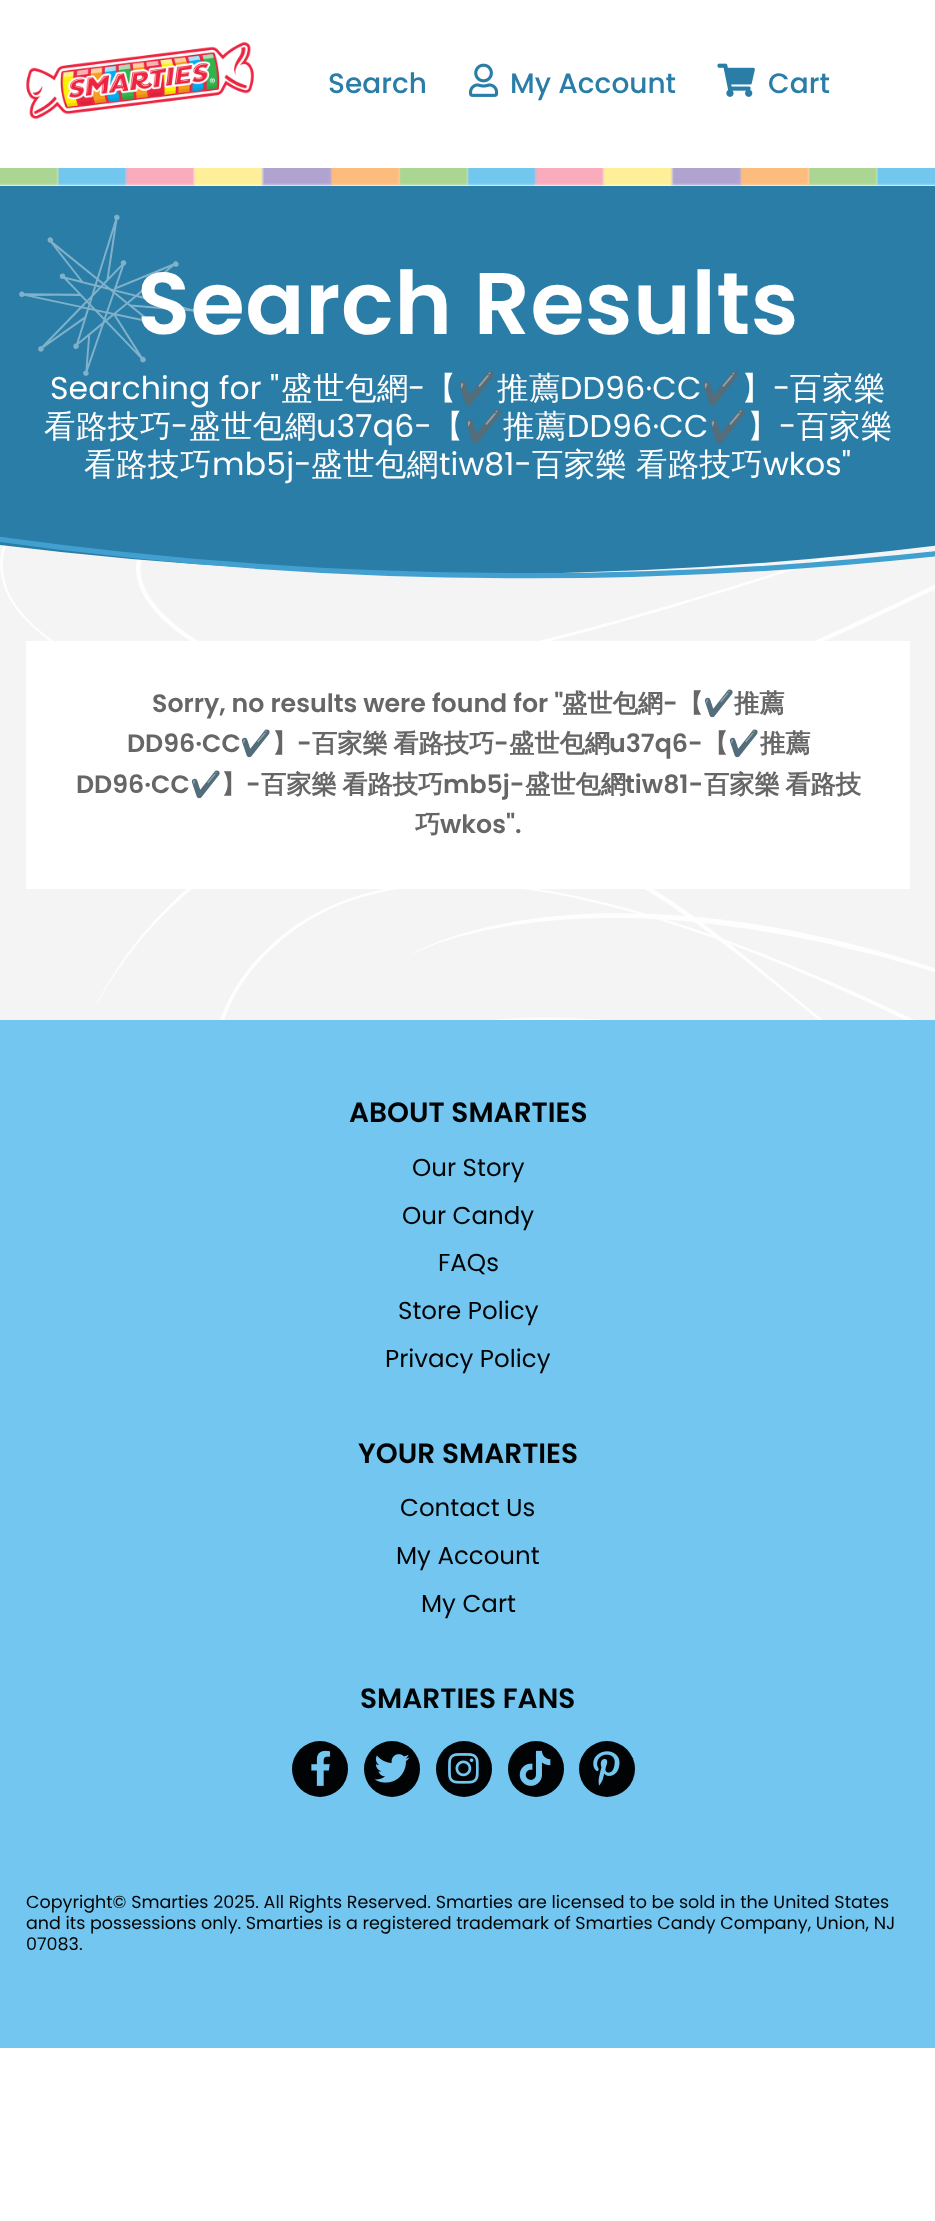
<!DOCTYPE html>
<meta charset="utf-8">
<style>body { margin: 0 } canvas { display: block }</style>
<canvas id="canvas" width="935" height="2221"></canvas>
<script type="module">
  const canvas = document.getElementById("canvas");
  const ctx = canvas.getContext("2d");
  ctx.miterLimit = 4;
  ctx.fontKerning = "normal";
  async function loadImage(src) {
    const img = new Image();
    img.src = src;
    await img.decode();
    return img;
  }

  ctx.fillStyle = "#ffffff";
  ctx.fillRect(0, 0, 935, 2221);
  ctx.drawImage(await loadImage("img1.png"), 26, 41, 228, 79);
  ctx.font = "500 28px Poppins";
  ctx.fillStyle = "#2a7da7";
  ctx.fillText("Search", 328, 93);
  ctx.drawImage(await loadImage("img2.png"), 469, 63, 30, 34);
  ctx.fillText("My Account", 510, 93);
  ctx.drawImage(await loadImage("img3.png"), 717, 63, 38, 34);
  ctx.fillText("Cart", 768, 93);
  ctx.drawImage(await loadImage("img4.png"), 0, 168, 935, 18);
  ctx.fillStyle = "#f4f4f4";
  ctx.fillRect(0, 545, 935, 475);
  ctx.drawImage(await loadImage("img5.png"), 0, 545, 935, 475);
  ctx.drawImage(await loadImage("img6.png"), 0, 186, 935, 393);
  ctx.letterSpacing = "0.5px";
  ctx.font = "600 87.5px Poppins";
  ctx.fillStyle = "#ffffff";
  ctx.fillText("Search Results", 137, 334);
  ctx.letterSpacing = "0.1px";
  ctx.font = "31.5px Poppins";
  ctx.fillText("Searching for \"", 50, 399);
  ctx.letterSpacing = "0.5px";
  ctx.font = "500 31.5px WenQuanYi Zen Hei";
  ctx.fillText("盛世包網", 281, 399);
  ctx.letterSpacing = "0px";
  ctx.font = "31.5px Poppins";
  ctx.fillText("-", 408, 399);
  ctx.letterSpacing = "0.5px";
  ctx.font = "500 31.5px WenQuanYi Zen Hei";
  ctx.fillText("【", 425, 399);
  ctx.letterSpacing = "0.25px";
  ctx.font = "31.5px Noto Color Emoji";
  ctx.fillText("✔️", 457, 399);
  ctx.letterSpacing = "0.5px";
  ctx.font = "500 31.5px WenQuanYi Zen Hei";
  ctx.fillText("推薦", 497, 399);
  ctx.letterSpacing = "0.25px";
  ctx.font = "31.5px Poppins";
  ctx.fillText("DD96·CC", 560, 399);
  ctx.font = "31.5px Noto Color Emoji";
  ctx.fillText("✔️", 701, 399);
  ctx.letterSpacing = "0.5px";
  ctx.font = "500 31.5px WenQuanYi Zen Hei";
  ctx.fillText("】", 741, 399);
  ctx.letterSpacing = "0px";
  ctx.font = "31.5px Poppins";
  ctx.fillText("-", 773, 399);
  ctx.letterSpacing = "0.5px";
  ctx.font = "500 31.5px WenQuanYi Zen Hei";
  ctx.fillText("百家樂", 790, 399);
  ctx.fillText("看路技巧", 44, 437);
  ctx.letterSpacing = "0px";
  ctx.font = "31.5px Poppins";
  ctx.fillText("-", 171, 437);
  ctx.letterSpacing = "0.5px";
  ctx.font = "500 31.5px WenQuanYi Zen Hei";
  ctx.fillText("盛世包網", 189, 437);
  ctx.letterSpacing = "0.25px";
  ctx.font = "31.5px Poppins";
  ctx.fillText("u37q6-", 316, 437);
  ctx.letterSpacing = "0.5px";
  ctx.font = "500 31.5px WenQuanYi Zen Hei";
  ctx.fillText("【", 432, 437);
  ctx.letterSpacing = "0.25px";
  ctx.font = "31.5px Noto Color Emoji";
  ctx.fillText("✔️", 464, 437);
  ctx.letterSpacing = "0.5px";
  ctx.font = "500 31.5px WenQuanYi Zen Hei";
  ctx.fillText("推薦", 503, 437);
  ctx.letterSpacing = "0.25px";
  ctx.font = "31.5px Poppins";
  ctx.fillText("DD96·CC", 567, 437);
  ctx.font = "31.5px Noto Color Emoji";
  ctx.fillText("✔️", 708, 437);
  ctx.letterSpacing = "0.5px";
  ctx.font = "500 31.5px WenQuanYi Zen Hei";
  ctx.fillText("】", 747, 437);
  ctx.letterSpacing = "0px";
  ctx.font = "31.5px Poppins";
  ctx.fillText("-", 779, 437);
  ctx.letterSpacing = "0.5px";
  ctx.font = "500 31.5px WenQuanYi Zen Hei";
  ctx.fillText("百家樂", 797, 437);
  ctx.fillText("看路技巧", 84, 475);
  ctx.letterSpacing = "0.25px";
  ctx.font = "31.5px Poppins";
  ctx.fillText("mb5j-", 212, 475);
  ctx.letterSpacing = "0.5px";
  ctx.font = "500 31.5px WenQuanYi Zen Hei";
  ctx.fillText("盛世包網", 311, 475);
  ctx.letterSpacing = "0.1px";
  ctx.font = "31.5px Poppins";
  ctx.fillText("tiw81-", 439, 475);
  ctx.letterSpacing = "0.25px";
  ctx.wordSpacing = "-1px";
  ctx.font = "500 31.5px WenQuanYi Zen Hei";
  ctx.fillText("百家樂 看路技巧", 532, 475);
  ctx.letterSpacing = "0px";
  ctx.wordSpacing = "0px";
  ctx.font = "31.5px Poppins";
  ctx.fillText("wkos\"", 763, 475);
  ctx.fillRect(26, 641, 884, 248);
  ctx.font = "600 25.25px Poppins";
  ctx.fillStyle = "#666666";
  ctx.fillText("Sorry, no results were found for \"", 152, 712);
  ctx.font = "bold 25.25px WenQuanYi Zen Hei";
  ctx.fillText("盛世包網", 562, 712);
  ctx.font = "600 25.25px Poppins";
  ctx.fillText("-", 663, 712);
  ctx.font = "bold 25.25px WenQuanYi Zen Hei";
  ctx.fillText("【", 678, 712);
  ctx.font = "bold 25.25px Noto Color Emoji";
  ctx.fillText("✔️", 703, 712);
  ctx.font = "bold 25.25px WenQuanYi Zen Hei";
  ctx.fillText("推薦", 734, 712);
  ctx.font = "600 25.25px Poppins";
  ctx.fillText("DD96·CC", 127, 752);
  ctx.font = "bold 25.25px Noto Color Emoji";
  ctx.fillText("✔️", 240, 752);
  ctx.font = "bold 25.25px WenQuanYi Zen Hei";
  ctx.fillText("】", 272, 752);
  ctx.font = "600 25.25px Poppins";
  ctx.fillText("-", 297, 752);
  ctx.wordSpacing = "-2px";
  ctx.font = "bold 25.25px WenQuanYi Zen Hei";
  ctx.fillText("百家樂 看路技巧", 312, 752);
  ctx.wordSpacing = "0px";
  ctx.font = "600 25.25px Poppins";
  ctx.fillText("-", 494, 752);
  ctx.font = "bold 25.25px WenQuanYi Zen Hei";
  ctx.fillText("盛世包網", 509, 752);
  ctx.font = "600 25.25px Poppins";
  ctx.fillText("u37q6-", 609, 752);
  ctx.font = "bold 25.25px WenQuanYi Zen Hei";
  ctx.fillText("【", 703, 752);
  ctx.font = "bold 25.25px Noto Color Emoji";
  ctx.fillText("✔️", 728, 752);
  ctx.font = "bold 25.25px WenQuanYi Zen Hei";
  ctx.fillText("推薦", 760, 752);
  ctx.font = "600 25.25px Poppins";
  ctx.fillText("DD96·CC", 76, 793);
  ctx.font = "bold 25.25px Noto Color Emoji";
  ctx.fillText("✔️", 190, 793);
  ctx.font = "bold 25.25px WenQuanYi Zen Hei";
  ctx.fillText("】", 221, 793);
  ctx.font = "600 25.25px Poppins";
  ctx.fillText("-", 246, 793);
  ctx.wordSpacing = "-2px";
  ctx.font = "bold 25.25px WenQuanYi Zen Hei";
  ctx.fillText("百家樂 看路技巧", 261, 793);
  ctx.wordSpacing = "0px";
  ctx.font = "600 25.25px Poppins";
  ctx.fillText("mb5j-", 443, 793);
  ctx.font = "bold 25.25px WenQuanYi Zen Hei";
  ctx.fillText("盛世包網", 525, 793);
  ctx.font = "600 25.25px Poppins";
  ctx.fillText("tiw81-", 625, 793);
  ctx.wordSpacing = "-2px";
  ctx.font = "bold 25.25px WenQuanYi Zen Hei";
  ctx.fillText("百家樂 看路技", 704, 793);
  ctx.wordSpacing = "0px";
  ctx.fillText("巧", 415, 833);
  ctx.font = "600 25.25px Poppins";
  ctx.fillText("wkos\".", 440, 833);
  ctx.fillStyle = "#72c6ef";
  ctx.fillRect(0, 1020, 935, 1028);
  ctx.font = "600 28px Poppins";
  ctx.fillStyle = "#010304";
  ctx.fillText("ABOUT SMARTIES", 349, 1122);
  ctx.font = "24.5px Poppins";
  ctx.fillText("Our Story", 412, 1176);
  ctx.fillText("Our Candy", 402, 1224);
  ctx.fillText("FAQs", 438, 1271);
  ctx.fillText("Store Policy", 398, 1319);
  ctx.fillText("Privacy Policy", 385, 1367);
  ctx.font = "600 28px Poppins";
  ctx.fillText("YOUR SMARTIES", 358, 1463);
  ctx.font = "24.5px Poppins";
  ctx.fillText("Contact Us", 400, 1516);
  ctx.fillText("My Account", 396, 1564);
  ctx.fillText("My Cart", 421, 1612);
  ctx.font = "600 28px Poppins";
  ctx.fillText("SMARTIES FANS", 360, 1708);
  ctx.beginPath();
  ctx.arc(320, 1769, 28, 0, Math.PI * 2);
  ctx.fill();
  ctx.drawImage(await loadImage("img7.png"), 311, 1750, 20, 36);
  ctx.beginPath();
  ctx.arc(392, 1769, 28, 0, Math.PI * 2);
  ctx.fill();
  ctx.drawImage(await loadImage("img8.png"), 374, 1754, 36, 29);
  ctx.beginPath();
  ctx.arc(464, 1769, 28, 0, Math.PI * 2);
  ctx.fill();
  ctx.drawImage(await loadImage("img9.png"), 448, 1753, 31, 31);
  ctx.beginPath();
  ctx.arc(536, 1769, 28, 0, Math.PI * 2);
  ctx.fill();
  ctx.drawImage(await loadImage("img10.png"), 519, 1750, 32, 36);
  ctx.beginPath();
  ctx.arc(607, 1769, 28, 0, Math.PI * 2);
  ctx.fill();
  ctx.drawImage(await loadImage("img11.png"), 593, 1751, 27, 35);
  ctx.font = "17.5px Poppins";
  ctx.fillText("Copyright© Smarties 2025. All Rights Reserved. Smarties are licensed to be sold in the United States", 26, 1908);
  ctx.fillText("and its possessions only. Smarties is a registered trademark of Smarties Candy Company, Union, NJ", 26, 1929);
  ctx.fillText("07083.", 26, 1950);
</script>
